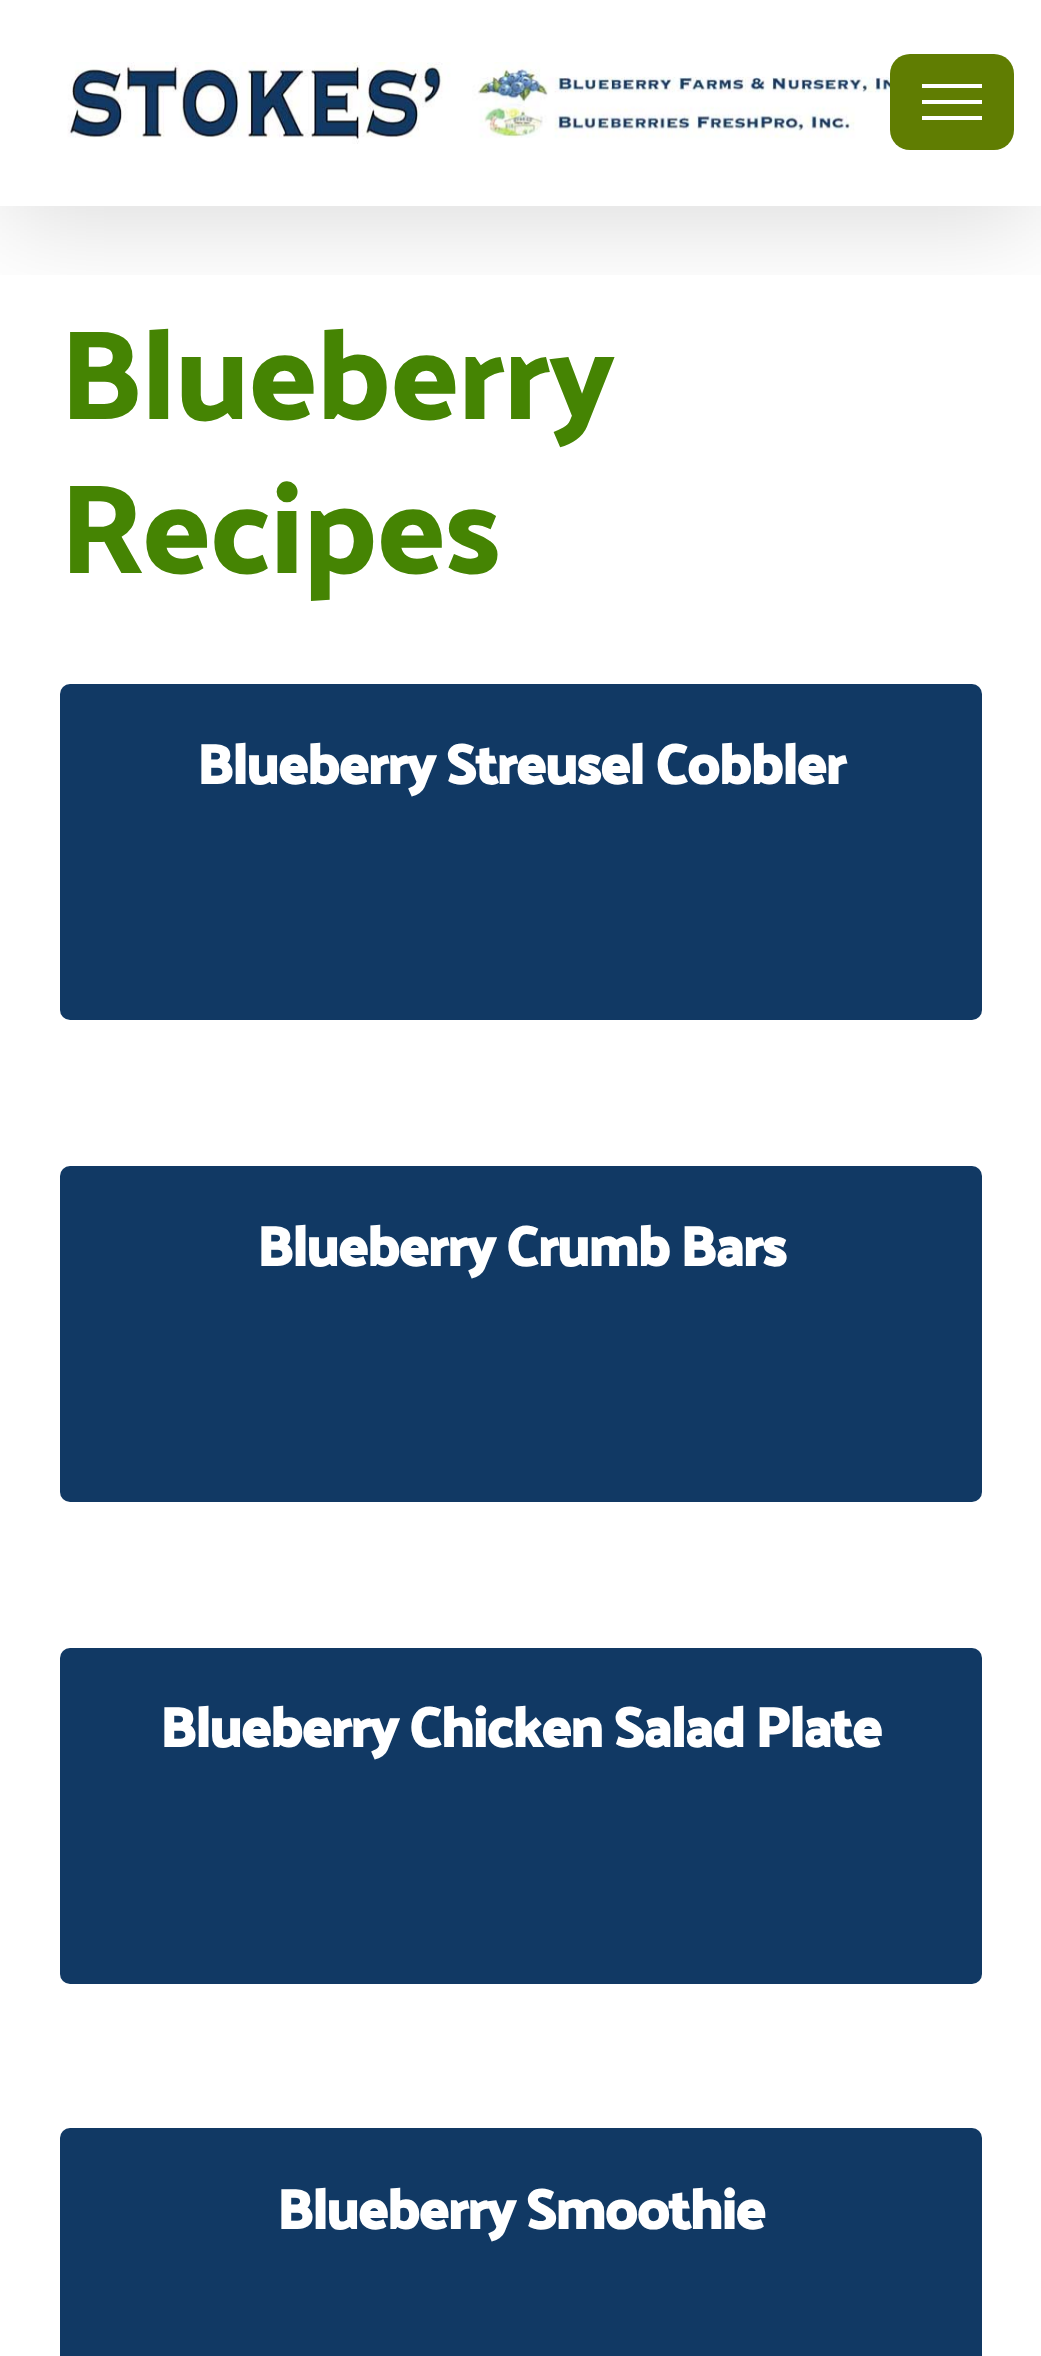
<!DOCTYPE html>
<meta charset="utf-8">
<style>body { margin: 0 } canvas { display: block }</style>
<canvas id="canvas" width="1041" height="2356"></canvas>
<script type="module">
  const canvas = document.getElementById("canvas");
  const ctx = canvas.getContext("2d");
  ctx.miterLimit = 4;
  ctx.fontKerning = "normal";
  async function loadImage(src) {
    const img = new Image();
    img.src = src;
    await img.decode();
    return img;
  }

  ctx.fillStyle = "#ffffff";
  ctx.fillRect(0, 0, 1041, 2356);
  ctx.save();
  ctx.beginPath();
  ctx.rect(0, 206, 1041, 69);
  ctx.clip();
  ctx.fillStyle = "rgba(0, 0, 0, 0.14)";
  ctx.filter = "blur(50px)";
  ctx.beginPath();
  ctx.rect(4, 24, 1034, 198);
  ctx.fill();
  ctx.filter = "none";
  ctx.restore();
  ctx.drawImage(await loadImage("img1.png"), 67, 62, 829, 82);
  ctx.fillStyle = "#607d02";
  ctx.beginPath();
  ctx.roundRect(890, 54, 124, 96, 20);
  ctx.fill();
  ctx.fillStyle = "#ffffff";
  ctx.fillRect(922, 84, 60, 4);
  ctx.fillRect(922, 100, 60, 4);
  ctx.fillRect(922, 116, 60, 4);
  ctx.letterSpacing = "-2px";
  ctx.font = "500 128px Palanquin Dark";
  ctx.fillStyle = "#458403";
  ctx.fillText("Blueberry", 60, 419);
  ctx.fillText("Recipes", 60, 573);
  ctx.fillStyle = "#113964";
  ctx.beginPath();
  ctx.roundRect(60, 684, 922, 336, 10);
  ctx.fill();
  ctx.letterSpacing = "-1.45px";
  ctx.font = "bold 56px Palanquin Dark";
  ctx.fillStyle = "#ffffff";
  ctx.fillText("Blueberry Streusel Cobbler", 197, 784);
  ctx.fillStyle = "#113964";
  ctx.beginPath();
  ctx.roundRect(60, 1166, 922, 336, 10);
  ctx.fill();
  ctx.fillStyle = "#ffffff";
  ctx.fillText("Blueberry Crumb Bars", 257, 1266);
  ctx.fillStyle = "#113964";
  ctx.beginPath();
  ctx.roundRect(60, 1648, 922, 336, 10);
  ctx.fill();
  ctx.fillStyle = "#ffffff";
  ctx.fillText("Blueberry Chicken Salad Plate", 160, 1747);
  ctx.fillStyle = "#113964";
  ctx.beginPath();
  ctx.roundRect(60, 2128, 922, 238, 10);
  ctx.fill();
  ctx.fillStyle = "#ffffff";
  ctx.fillText("Blueberry Smoothie", 277, 2229);
</script>
